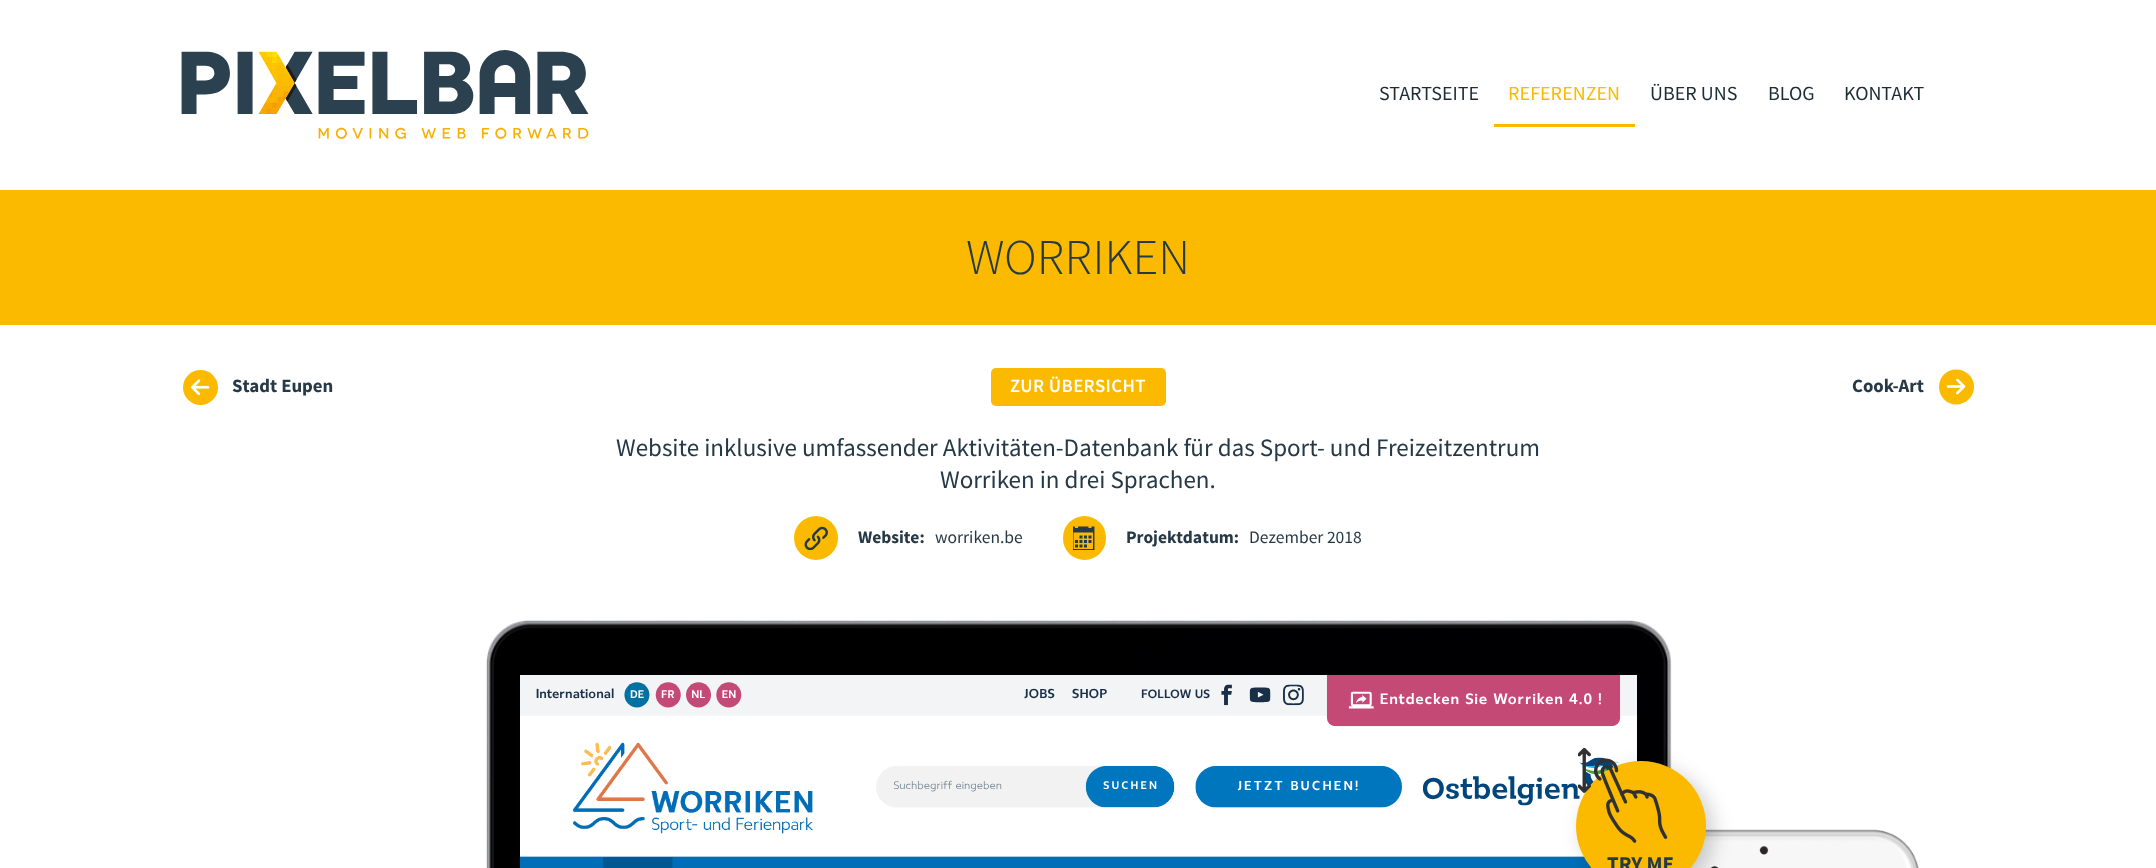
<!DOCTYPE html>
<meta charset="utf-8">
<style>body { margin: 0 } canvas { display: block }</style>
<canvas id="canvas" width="2156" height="868"></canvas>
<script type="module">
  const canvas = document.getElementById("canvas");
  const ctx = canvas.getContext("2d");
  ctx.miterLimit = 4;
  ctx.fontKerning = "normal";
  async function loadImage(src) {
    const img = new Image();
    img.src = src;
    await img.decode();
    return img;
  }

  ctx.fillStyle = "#ffffff";
  ctx.fillRect(0, 0, 2156, 868);
  ctx.drawImage(await loadImage("img1.png"), 181, 50, 408, 89);
  ctx.font = "20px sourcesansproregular";
  ctx.fillStyle = "#1d2c35";
  ctx.fillText("STARTSEITE", 1379, 100);
  ctx.fillStyle = "#fbba00";
  ctx.fillText("REFERENZEN", 1508, 100);
  ctx.fillRect(1494, 124, 141, 3);
  ctx.fillStyle = "#1d2c35";
  ctx.fillText("ÜBER UNS", 1650, 100);
  ctx.fillText("BLOG", 1768, 100);
  ctx.fillText("KONTAKT", 1844, 100);
  ctx.fillStyle = "#fbba00";
  ctx.fillRect(0, 190, 2156, 135);
  ctx.font = "300 50px Source Sans Pro";
  ctx.fillStyle = "#263946";
  ctx.fillText("WORRIKEN", 966, 274);
  ctx.fillStyle = "#fbba00";
  ctx.beginPath();
  ctx.arc(200.5, 387.5, 17.5, 0, Math.PI * 2);
  ctx.fill();
  ctx.drawImage(await loadImage("img2.png"), 191, 379, 19, 16);
  ctx.font = "bold 18.75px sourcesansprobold";
  ctx.fillStyle = "#263946";
  ctx.fillText("Stadt Eupen", 232, 392);
  ctx.fillStyle = "#fbba00";
  ctx.beginPath();
  ctx.roundRect(991, 368, 175, 38, 5);
  ctx.fill();
  ctx.letterSpacing = "0.4px";
  ctx.font = "600 18.75px Source Sans Pro";
  ctx.fillStyle = "#ffffff";
  ctx.fillText("ZUR ÜBERSICHT", 1010, 392);
  ctx.letterSpacing = "0px";
  ctx.font = "bold 18.75px sourcesansprobold";
  ctx.fillStyle = "#263946";
  ctx.fillText("Cook-Art", 1852, 392);
  ctx.fillStyle = "#fbba00";
  ctx.beginPath();
  ctx.moveTo(1956, 404.5);
  ctx.bezierCurveTo(1946.5, 404.5, 1939, 396.5, 1939, 387);
  ctx.bezierCurveTo(1939, 377, 1946.5, 369.5, 1956, 369.5);
  ctx.bezierCurveTo(1966, 369.5, 1974, 377, 1974, 387);
  ctx.bezierCurveTo(1974, 396.5, 1966, 404.5, 1956, 404.5);
  ctx.closePath();
  ctx.fill();
  ctx.drawImage(await loadImage("img3.png"), 1946, 379, 20, 16);
  ctx.font = "25px sourcesansproregular";
  ctx.fillStyle = "#263946";
  ctx.fillText("Website inklusive umfassender Aktivitäten-Datenbank für das Sport- und Freizeitzentrum", 616, 456);
  ctx.fillText("Worriken in drei Sprachen.", 940, 488);
  ctx.fillStyle = "#fbba00";
  ctx.beginPath();
  ctx.arc(816, 538, 22, 0, Math.PI * 2);
  ctx.fill();
  ctx.drawImage(await loadImage("img4.png"), 804, 526, 24, 24);
  ctx.font = "bold 17.5px sourcesansprobold";
  ctx.fillStyle = "#263946";
  ctx.fillText("Website:", 858, 543);
  ctx.font = "17.5px sourcesansproregular";
  ctx.fillText("worriken.be", 935, 543);
  ctx.fillStyle = "#fbba00";
  ctx.beginPath();
  ctx.roundRect(1063, 516, 43, 44, 21.5);
  ctx.fill();
  ctx.drawImage(await loadImage("img5.png"), 1073, 526, 22, 24);
  ctx.font = "bold 17.5px sourcesansprobold";
  ctx.fillStyle = "#263946";
  ctx.fillText("Projektdatum:", 1126, 543);
  ctx.font = "17.5px sourcesansproregular";
  ctx.fillText("Dezember 2018", 1249, 543);
  ctx.drawImage(await loadImage("img6.png"), 485, 620, 1187, 248);
  ctx.drawImage(await loadImage("img7.png"), 520, 675, 1117, 193);
  ctx.drawImage(await loadImage("img8.png"), 1690, 829, 229, 39);
  ctx.fillStyle = "rgba(0, 0, 0, 0.2)";
  ctx.filter = "blur(10px)";
  ctx.beginPath();
  ctx.roundRect(1583, 768, 130, 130, 65);
  ctx.fill();
  ctx.filter = "none";
  ctx.fillStyle = "#fbba00";
  ctx.beginPath();
  ctx.arc(1641, 826, 65, 0, Math.PI * 2);
  ctx.fill();
  ctx.drawImage(await loadImage("img9.png"), 1578, 748, 90, 95);
  ctx.font = "bold 21px sourcesansprobold";
  ctx.fillStyle = "#263946";
  ctx.fillText("TRY ME", 1607, 871);
</script>
